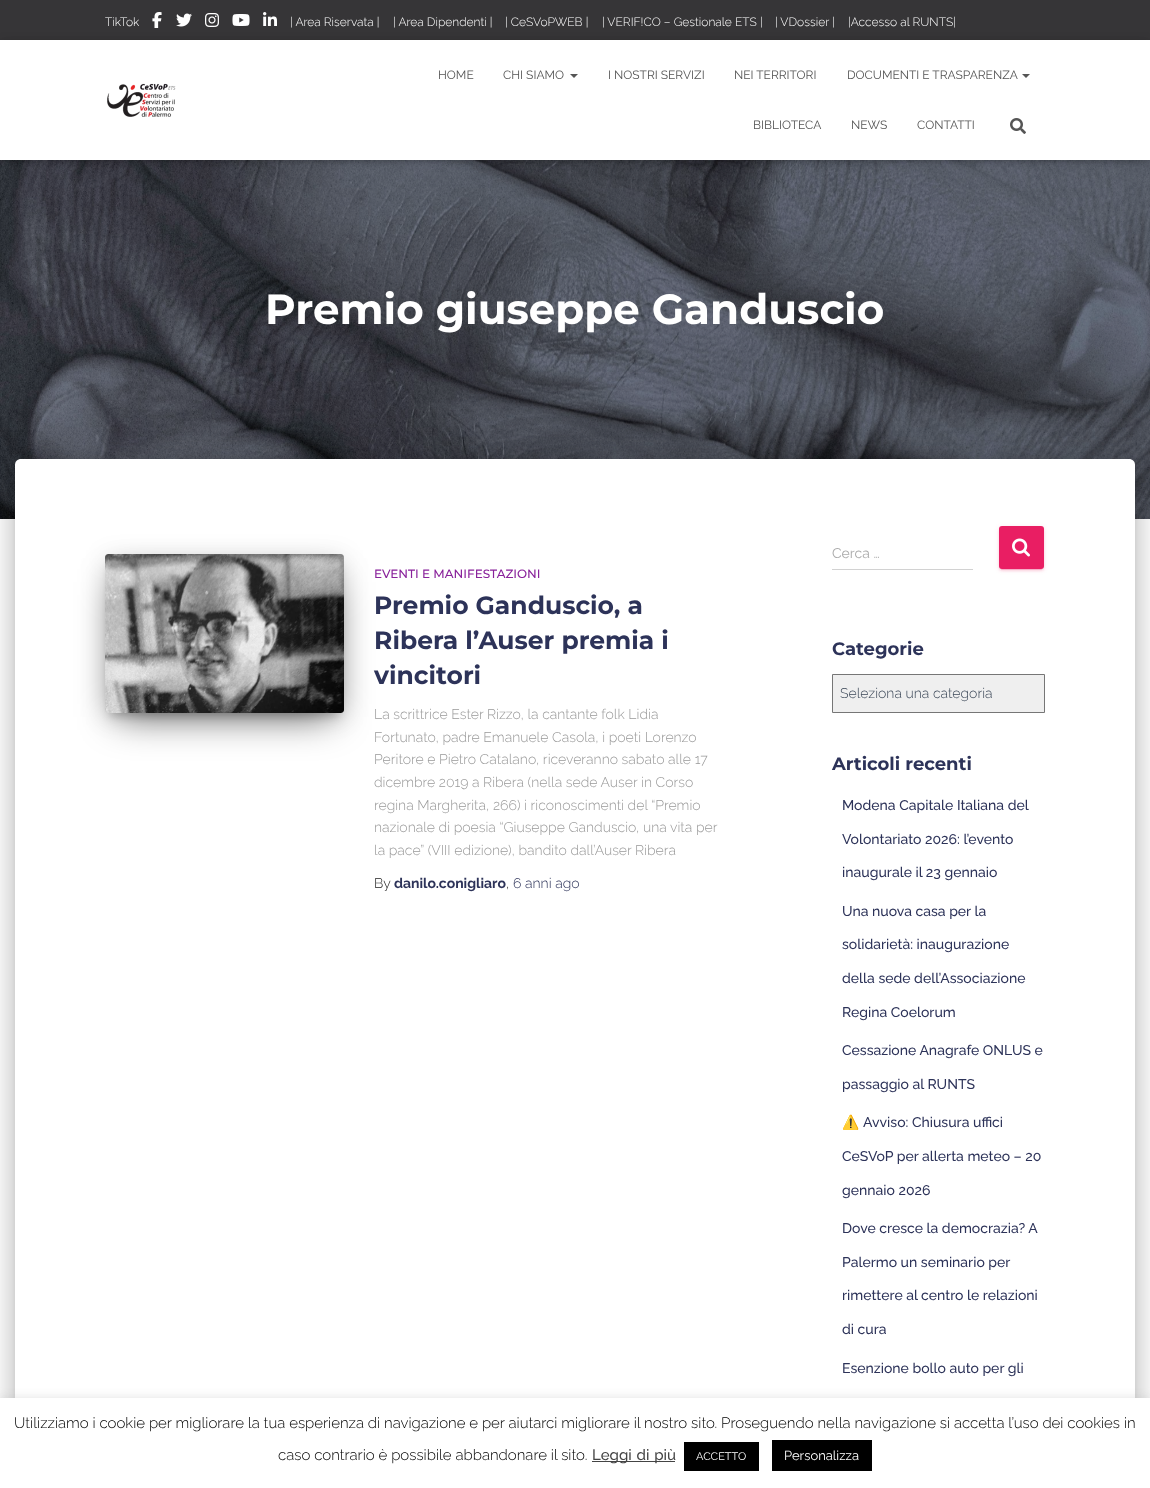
<!DOCTYPE html>
<meta charset="utf-8">
<style>body { margin: 0 } canvas { display: block }</style>
<canvas id="canvas" width="1150" height="1488"></canvas>
<script type="module">
  const canvas = document.getElementById("canvas");
  const ctx = canvas.getContext("2d");
  ctx.miterLimit = 4;
  ctx.fontKerning = "normal";
  async function loadImage(src) {
    const img = new Image();
    img.src = src;
    await img.decode();
    return img;
  }

  ctx.fillStyle = "#ffffff";
  ctx.fillRect(0, 0, 1150, 1488);
  ctx.fillStyle = "#363537";
  ctx.fillRect(0, 0, 1150, 40);
  ctx.font = "300 12px Raleway";
  ctx.fillStyle = "#ffffff";
  ctx.fillText("TikTok", 105, 26);
  ctx.drawImage(await loadImage("img1.png"), 152, 12, 10, 16);
  ctx.drawImage(await loadImage("img2.png"), 176, 13, 16, 14);
  ctx.drawImage(await loadImage("img3.png"), 205, 13, 14, 14);
  ctx.drawImage(await loadImage("img4.png"), 232, 14, 18, 12);
  ctx.drawImage(await loadImage("img5.png"), 263, 12, 14, 14);
  ctx.fillText("| Area Riservata |", 290, 26);
  ctx.fillText("| Area Dipendenti |", 393, 26);
  ctx.fillText("| CeSVoPWEB |", 505, 26);
  ctx.fillText("| VERIF!CO – Gestionale ETS |", 602, 26);
  ctx.fillText("| VDossier |", 775, 26);
  ctx.fillText("|Accesso al RUNTS|", 848, 26);
  ctx.drawImage(await loadImage("img8.png"), 0, 160, 1150, 359);
  ctx.fillStyle = "rgba(0, 0, 0, 0.1)";
  ctx.filter = "blur(2.5px)";
  ctx.beginPath();
  ctx.rect(2, 46, 1146, 116);
  ctx.fill();
  ctx.filter = "none";
  ctx.fillStyle = "rgba(0, 0, 0, 0.12)";
  ctx.filter = "blur(5px)";
  ctx.beginPath();
  ctx.rect(0, 41, 1150, 120);
  ctx.fill();
  ctx.filter = "none";
  ctx.fillStyle = "rgba(0, 0, 0, 0.42)";
  ctx.filter = "blur(5px)";
  ctx.beginPath();
  ctx.rect(6, 47, 1138, 108);
  ctx.fill();
  ctx.filter = "none";
  ctx.fillStyle = "#ffffff";
  ctx.fillRect(0, 40, 1150, 120);
  ctx.drawImage(await loadImage("img6.png"), 107, 83, 69, 34);
  ctx.font = "12px Raleway";
  ctx.fillStyle = "#555555";
  ctx.fillText("HOME", 438, 79);
  ctx.fillText("CHI SIAMO", 503, 79);
  ctx.beginPath();
  ctx.moveTo(570, 74);
  ctx.lineTo(578, 74);
  ctx.lineTo(574, 78);
  ctx.closePath();
  ctx.fill();
  ctx.fillText("I NOSTRI SERVIZI", 608, 79);
  ctx.fillText("NEI TERRITORI", 734, 79);
  ctx.fillText("DOCUMENTI E TRASPARENZA", 847, 79);
  ctx.beginPath();
  ctx.moveTo(1022, 74);
  ctx.lineTo(1030, 74);
  ctx.lineTo(1026, 78);
  ctx.closePath();
  ctx.fill();
  ctx.fillText("BIBLIOTECA", 753, 129);
  ctx.fillText("NEWS", 851, 129);
  ctx.fillText("CONTATTI", 917, 129);
  ctx.drawImage(await loadImage("img7.png"), 1010, 118, 16, 16);
  ctx.font = "bold 42px Montserrat";
  ctx.fillStyle = "#ffffff";
  ctx.fillText("Premio giuseppe Ganduscio", 265, 324);
  ctx.fillStyle = "rgba(0, 0, 0, 0.2)";
  ctx.filter = "blur(5px)";
  ctx.beginPath();
  ctx.roundRect(20, 472, 1110, 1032, 1);
  ctx.fill();
  ctx.filter = "none";
  ctx.fillStyle = "rgba(0, 0, 0, 0.12)";
  ctx.filter = "blur(15px)";
  ctx.beginPath();
  ctx.roundRect(10, 460, 1130, 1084, 11);
  ctx.fill();
  ctx.filter = "none";
  ctx.fillStyle = "rgba(0, 0, 0, 0.14)";
  ctx.filter = "blur(12px)";
  ctx.beginPath();
  ctx.roundRect(13, 473, 1124, 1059, 8);
  ctx.fill();
  ctx.filter = "none";
  ctx.fillStyle = "#ffffff";
  ctx.beginPath();
  ctx.moveTo(21, 459);
  ctx.lineTo(1129, 459);
  ctx.bezierCurveTo(1132.5, 459, 1135, 461.5, 1135, 465);
  ctx.lineTo(1135, 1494);
  ctx.lineTo(15, 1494);
  ctx.lineTo(15, 465);
  ctx.bezierCurveTo(15, 461.5, 17.5, 459, 21, 459);
  ctx.closePath();
  ctx.fill();
  ctx.fillStyle = "rgba(0, 0, 0, 0.2)";
  ctx.filter = "blur(5px)";
  ctx.beginPath();
  ctx.rect(110, 567, 229, 149);
  ctx.fill();
  ctx.filter = "none";
  ctx.fillStyle = "rgba(0, 0, 0, 0.12)";
  ctx.filter = "blur(12.5px)";
  ctx.beginPath();
  ctx.roundRect(105, 558, 239, 159, 3);
  ctx.fill();
  ctx.filter = "none";
  ctx.fillStyle = "rgba(0, 0, 0, 0.56)";
  ctx.filter = "blur(19px)";
  ctx.beginPath();
  ctx.rect(117, 582, 215, 135);
  ctx.fill();
  ctx.filter = "none";
  ctx.drawImage(await loadImage("img9.png"), 105, 554, 239, 159);
  ctx.font = "500 12px Montserrat";
  ctx.fillStyle = "#89229b";
  ctx.fillText("EVENTI E MANIFESTAZIONI", 374, 578);
  ctx.font = "bold 25px Montserrat";
  ctx.fillStyle = "#2d3359";
  ctx.fillText("Premio Ganduscio, a", 374, 614);
  ctx.fillText("Ribera l’Auser premia i", 374, 649);
  ctx.fillText("vincitori", 374, 684);
  ctx.font = "300 14px Raleway";
  ctx.fillStyle = "#999999";
  ctx.fillText("La scrittrice Ester Rizzo, la cantante folk Lidia", 374, 719);
  ctx.fillText("Fortunato, padre Emanuele Casola, i poeti Lorenzo", 374, 742);
  ctx.fillText("Peritore e Pietro Catalano, riceveranno sabato alle 17", 374, 764);
  ctx.fillText("dicembre 2019 a Ribera (nella sede Auser in Corso", 374, 787);
  ctx.fillText("regina Margherita, 266) i riconoscimenti del “Premio", 374, 810);
  ctx.fillText("nazionale di poesia “Giuseppe Ganduscio, una vita per", 374, 832);
  ctx.fillText("la pace” (VIII edizione), bandito dall’Auser Ribera", 374, 855);
  ctx.fillStyle = "#212121";
  ctx.fillText("By", 374, 888);
  ctx.font = "bold 14px Raleway";
  ctx.fillStyle = "#2d3359";
  ctx.fillText("danilo.conigliaro", 394, 888);
  ctx.font = "300 14px Raleway";
  ctx.fillStyle = "#212121";
  ctx.fillText(",", 506, 888);
  ctx.fillStyle = "#2d3359";
  ctx.fillText("6 anni ago", 513, 888);
  ctx.font = "14px Raleway";
  ctx.fillStyle = "#aaaaaa";
  ctx.fillText("Cerca …", 832, 558);
  ctx.fillStyle = "#d2d2d2";
  ctx.fillRect(832, 569, 141, 1);
  ctx.fillStyle = "rgba(233, 30, 99, 0.12)";
  ctx.filter = "blur(2.5px)";
  ctx.beginPath();
  ctx.roundRect(999, 527, 45, 43, 3);
  ctx.fill();
  ctx.filter = "none";
  ctx.fillStyle = "rgba(233, 30, 99, 0.2)";
  ctx.filter = "blur(0.5px)";
  ctx.beginPath();
  ctx.roundRect(1001, 531, 41, 39, 1);
  ctx.fill();
  ctx.filter = "none";
  ctx.fillStyle = "rgba(233, 30, 99, 0.14)";
  ctx.filter = "blur(1px)";
  ctx.beginPath();
  ctx.roundRect(999, 528, 45, 43, 3);
  ctx.fill();
  ctx.filter = "none";
  ctx.fillStyle = "#e91e63";
  ctx.beginPath();
  ctx.roundRect(999, 526, 45, 43, 3);
  ctx.fill();
  ctx.drawImage(await loadImage("img10.png"), 1012, 538, 18, 19);
  ctx.font = "bold 18px Montserrat";
  ctx.fillStyle = "#2d3359";
  ctx.fillText("Categorie", 832, 655);
  ctx.fillStyle = "#efefef";
  ctx.beginPath();
  ctx.rect(832.5, 674.5, 212, 38);
  ctx.fill();
  ctx.strokeStyle = "#767676";
  ctx.stroke();
  ctx.font = "300 14px Raleway";
  ctx.fillStyle = "#3c4858";
  ctx.fillText("Seleziona una categoria", 840, 698);
  ctx.font = "bold 18px Montserrat";
  ctx.fillStyle = "#2d3359";
  ctx.fillText("Articoli recenti", 832, 770);
  ctx.font = "500 14px Raleway";
  ctx.fillText("Modena Capitale Italiana del", 842, 810);
  ctx.fillText("Volontariato 2026: l’evento", 842, 844);
  ctx.fillText("inaugurale il 23 gennaio", 842, 877);
  ctx.fillText("Una nuova casa per la", 842, 916);
  ctx.fillText("solidarietà: inaugurazione", 842, 949);
  ctx.fillText("della sede dell’Associazione", 842, 983);
  ctx.fillText("Regina Coelorum", 842, 1017);
  ctx.fillText("Cessazione Anagrafe ONLUS e", 842, 1055);
  ctx.fillText("passaggio al RUNTS", 842, 1089);
  ctx.font = "14px Noto Color Emoji";
  ctx.fillText("⚠️", 842, 1127);
  ctx.font = "500 14px Raleway";
  ctx.fillText("Avviso: Chiusura uffici", 863, 1127);
  ctx.fillText("CeSVoP per allerta meteo – 20", 842, 1161);
  ctx.fillText("gennaio 2026", 842, 1195);
  ctx.fillText("Dove cresce la democrazia? A", 842, 1233);
  ctx.fillText("Palermo un seminario per", 842, 1267);
  ctx.fillText("rimettere al centro le relazioni", 842, 1300);
  ctx.fillText("di cura", 842, 1334);
  ctx.fillText("Esenzione bollo auto per gli", 842, 1373);
  ctx.fillStyle = "rgba(172, 171, 171, 0.3)";
  ctx.filter = "blur(5px)";
  ctx.beginPath();
  ctx.rect(0, 1397, 1150, 90);
  ctx.fill();
  ctx.filter = "none";
  ctx.fillStyle = "#ffffff";
  ctx.fillRect(0, 1398, 1150, 90);
  ctx.font = "300 15px Raleway";
  ctx.fillStyle = "#000000";
  ctx.fillText("Utilizziamo i cookie per migliorare la tua esperienza di navigazione e per aiutarci migliorare il nostro sito. Proseguendo nella navigazione si accetta l’uso dei cookies in", 14, 1428);
  ctx.fillText("caso contrario è possibile abbandonare il sito.", 278, 1460);
  ctx.fillStyle = "#444444";
  ctx.fillRect(592, 1461, 83, 1);
  ctx.wordSpacing = "1px";
  ctx.font = "500 15px Raleway";
  ctx.fillText("Leggi di più", 592, 1460);
  ctx.fillStyle = "#000000";
  ctx.fillRect(684, 1442, 75, 29);
  ctx.wordSpacing = "0px";
  ctx.font = "11px Raleway";
  ctx.fillStyle = "#ffffff";
  ctx.fillText("ACCETTO", 696, 1460);
  ctx.fillStyle = "#000000";
  ctx.fillRect(772, 1440, 100, 31);
  ctx.font = "13px Raleway";
  ctx.fillStyle = "#ffffff";
  ctx.fillText("Personalizza", 784, 1460);
</script>
